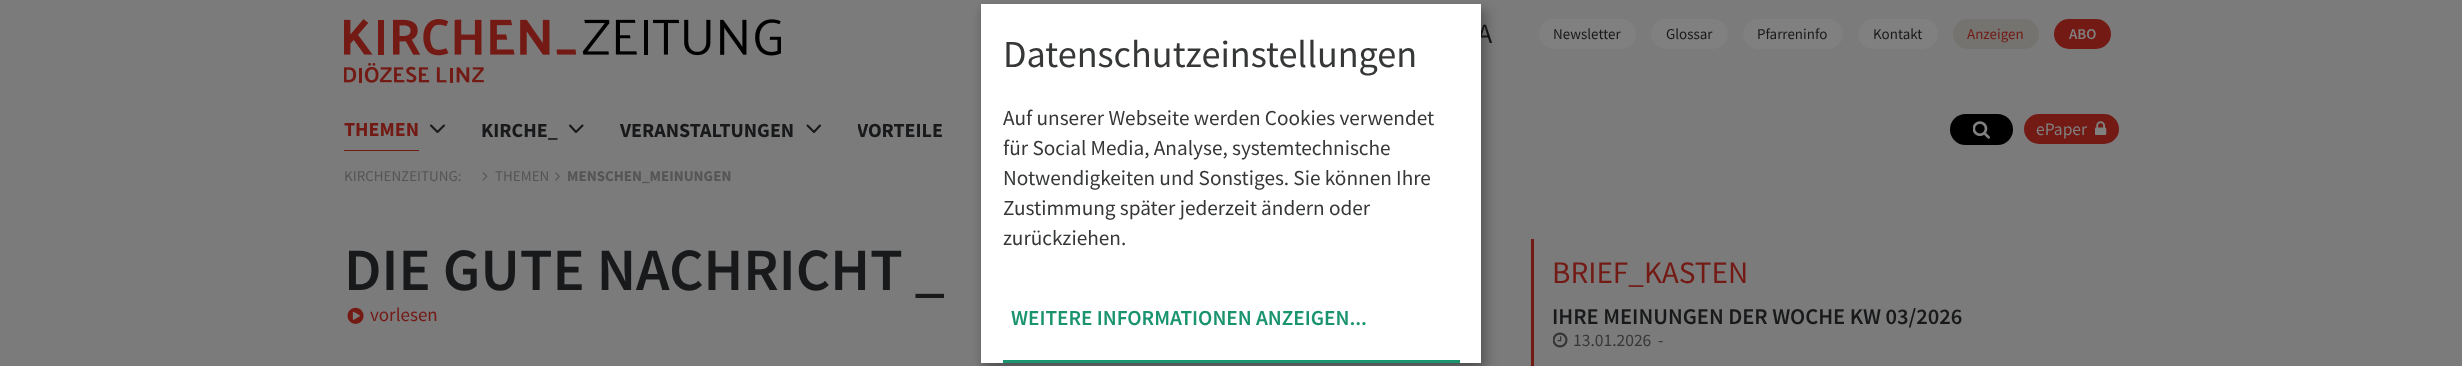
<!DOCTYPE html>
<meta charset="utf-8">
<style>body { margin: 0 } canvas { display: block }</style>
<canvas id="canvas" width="2462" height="366"></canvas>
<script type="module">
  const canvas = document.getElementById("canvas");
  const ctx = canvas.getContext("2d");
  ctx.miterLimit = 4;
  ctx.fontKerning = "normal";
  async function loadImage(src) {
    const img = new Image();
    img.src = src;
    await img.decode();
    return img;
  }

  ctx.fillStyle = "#7c7b7b";
  ctx.fillRect(0, 0, 2462, 366);
  ctx.drawImage(await loadImage("img1.png"), 344, 19, 437, 64);
  ctx.font = "28px Source Sans Pro";
  ctx.fillStyle = "#18191a";
  ctx.fillText("A", 1477, 43);
  ctx.fillStyle = "#808080";
  ctx.beginPath();
  ctx.roundRect(1539, 19, 97, 30, 15);
  ctx.fill();
  ctx.font = "15px Source Sans Pro";
  ctx.fillStyle = "#18191a";
  ctx.fillText("Newsletter", 1553, 39);
  ctx.fillStyle = "#808080";
  ctx.beginPath();
  ctx.roundRect(1651, 19, 77, 30, 15);
  ctx.fill();
  ctx.fillStyle = "#18191a";
  ctx.fillText("Glossar", 1666, 39);
  ctx.fillStyle = "#808080";
  ctx.beginPath();
  ctx.roundRect(1743, 19, 100, 30, 15);
  ctx.fill();
  ctx.fillStyle = "#18191a";
  ctx.fillText("Pfarreninfo", 1757, 39);
  ctx.fillStyle = "#808080";
  ctx.beginPath();
  ctx.roundRect(1858, 19, 80, 30, 15);
  ctx.fill();
  ctx.fillStyle = "#18191a";
  ctx.fillText("Kontakt", 1873, 39);
  ctx.fillStyle = "#75736f";
  ctx.beginPath();
  ctx.roundRect(1953, 19, 86, 30, 15);
  ctx.fill();
  ctx.fillStyle = "#731a15";
  ctx.fillText("Anzeigen", 1967, 39);
  ctx.beginPath();
  ctx.roundRect(2054, 19, 57, 30, 15);
  ctx.fill();
  ctx.font = "600 15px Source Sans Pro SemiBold";
  ctx.fillStyle = "#808080";
  ctx.fillText("ABO", 2069, 39);
  ctx.fillStyle = "#731a15";
  ctx.fillRect(344, 150, 75, 1);
  ctx.font = "bold 20px Source Sans Pro";
  ctx.fillText("THEMEN", 344, 136);
  ctx.beginPath();
  ctx.moveTo(431, 125.5);
  ctx.lineTo(437.5, 132);
  ctx.lineTo(444, 125.5);
  ctx.strokeStyle = "#18191a";
  ctx.lineWidth = 2.1;
  ctx.lineCap = "round";
  ctx.lineJoin = "round";
  ctx.stroke();
  ctx.fillStyle = "#18191a";
  ctx.fillText("KIRCHE_", 481, 137);
  ctx.beginPath();
  ctx.moveTo(570, 125.5);
  ctx.lineTo(576, 132);
  ctx.lineTo(582.5, 125.5);
  ctx.stroke();
  ctx.fillText("VERANSTALTUNGEN", 620, 137);
  ctx.beginPath();
  ctx.moveTo(807.5, 125.5);
  ctx.lineTo(814, 132);
  ctx.lineTo(820, 125.5);
  ctx.stroke();
  ctx.save();
  ctx.beginPath();
  ctx.rect(858, 114, 85, 30);
  ctx.clip();
  ctx.fillText("VORTEILE", 857, 137);
  ctx.restore();
  ctx.fillStyle = "#000000";
  ctx.beginPath();
  ctx.roundRect(1950, 114, 63, 31, 15.5);
  ctx.fill();
  ctx.drawImage(await loadImage("img2.png"), 1973, 121, 17, 18);
  ctx.fillStyle = "#731a15";
  ctx.beginPath();
  ctx.roundRect(2024, 114, 95, 30, 15);
  ctx.fill();
  ctx.font = "17.5px Source Sans Pro";
  ctx.fillStyle = "#808080";
  ctx.fillText("ePaper", 2036, 135);
  ctx.drawImage(await loadImage("img3.png"), 2095, 121, 12, 14);
  ctx.font = "15px Source Sans Pro";
  ctx.fillStyle = "#555555";
  ctx.fillText("KIRCHENZEITUNG:", 344, 181);
  ctx.drawImage(await loadImage("img4.png"), 482, 172, 6, 9);
  ctx.fillText("THEMEN", 495, 181);
  ctx.drawImage(await loadImage("img5.png"), 555, 172, 5, 9);
  ctx.font = "bold 15px Source Sans Pro";
  ctx.fillText("MENSCHEN_MEINUNGEN", 567, 181);
  ctx.fillStyle = "#731a15";
  ctx.fillRect(1531, 239, 3, 127);
  ctx.font = "600 60px Source Sans Pro SemiBold";
  ctx.fillStyle = "#18191a";
  ctx.fillText("DIE GUTE NACHRICHT _", 344, 290);
  ctx.drawImage(await loadImage("img6.png"), 347, 307, 17, 17);
  ctx.font = "19px Source Sans Pro";
  ctx.fillStyle = "#731a15";
  ctx.fillText("vorlesen", 370, 321);
  ctx.font = "31.25px Source Sans Pro";
  ctx.fillText("BRIEF_KASTEN", 1552, 283);
  ctx.font = "600 22.5px Source Sans Pro SemiBold";
  ctx.fillStyle = "#18191a";
  ctx.fillText("IHRE MEINUNGEN DER WOCHE KW 03/2026", 1552, 324);
  ctx.drawImage(await loadImage("img7.png"), 1553, 332, 15, 16);
  ctx.font = "17.5px Source Sans Pro";
  ctx.fillStyle = "#363737";
  ctx.fillText("13.01.2026", 1573, 346);
  ctx.fillText("-", 1658, 346);
  ctx.fillStyle = "rgba(0, 0, 0, 0.19)";
  ctx.filter = "blur(6px)";
  ctx.beginPath();
  ctx.rect(988, 10, 500, 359);
  ctx.fill();
  ctx.filter = "none";
  ctx.fillStyle = "rgba(0, 0, 0, 0.2)";
  ctx.filter = "blur(4px)";
  ctx.beginPath();
  ctx.rect(981, 9, 500, 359);
  ctx.fill();
  ctx.filter = "none";
  ctx.fillStyle = "#ffffff";
  ctx.fillRect(981, 4, 500, 359);
  ctx.font = "38.25px Source Sans Pro";
  ctx.fillStyle = "#363737";
  ctx.fillText("Datenschutzeinstellungen", 1003, 67);
  ctx.font = "21.25px Source Sans Pro";
  ctx.fillText("Auf unserer Webseite werden Cookies verwendet", 1003, 125);
  ctx.fillText("für Social Media, Analyse, systemtechnische", 1003, 155);
  ctx.fillText("Notwendigkeiten und Sonstiges. Sie können Ihre", 1003, 185);
  ctx.fillText("Zustimmung später jederzeit ändern oder", 1003, 215);
  ctx.fillText("zurückziehen.", 1003, 245);
  ctx.font = "600 21.25px Source Sans Pro SemiBold";
  ctx.fillStyle = "#1a936f";
  ctx.fillText("WEITERE INFORMATIONEN ANZEIGEN...", 1011, 325);
  ctx.fillRect(1003, 360, 457, 3);
</script>
